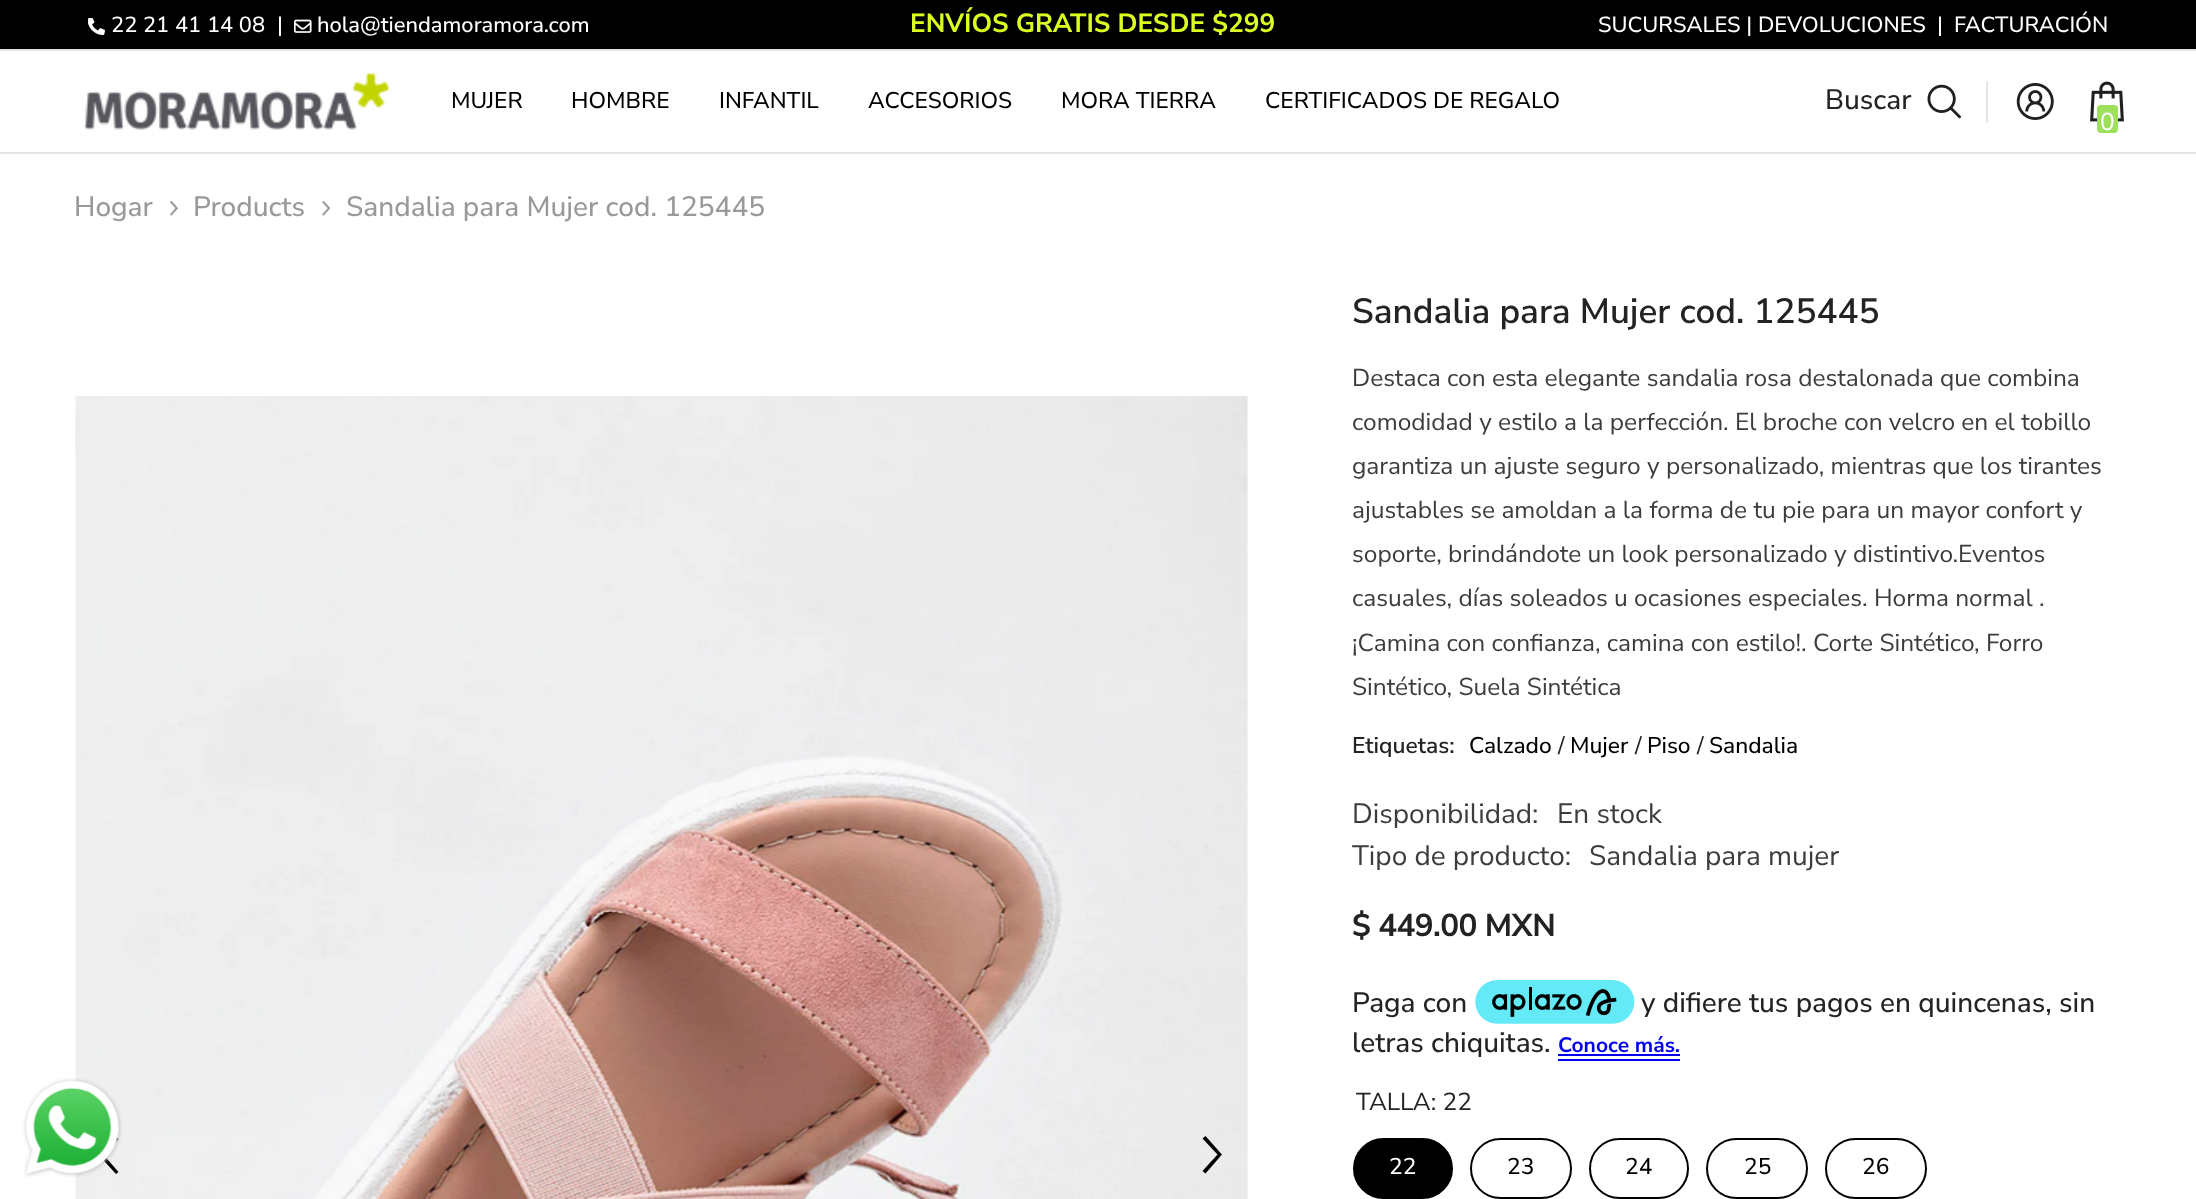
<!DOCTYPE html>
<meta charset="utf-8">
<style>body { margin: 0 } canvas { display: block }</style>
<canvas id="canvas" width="2196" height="1199"></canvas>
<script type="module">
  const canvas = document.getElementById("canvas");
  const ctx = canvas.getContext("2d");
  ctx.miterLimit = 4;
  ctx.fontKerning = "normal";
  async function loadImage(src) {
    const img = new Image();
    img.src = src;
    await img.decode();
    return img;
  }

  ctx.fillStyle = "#ffffff";
  ctx.fillRect(0, 0, 2196, 1199);
  ctx.drawImage(await loadImage("img10.png"), 75, 396, 1173, 803);
  ctx.fillStyle = "#000000";
  ctx.beginPath();
  ctx.moveTo(116, 1174);
  ctx.lineTo(118.5, 1172);
  ctx.lineTo(104, 1155.5);
  ctx.lineTo(118.5, 1139);
  ctx.lineTo(116, 1137);
  ctx.lineTo(99, 1155.5);
  ctx.lineTo(100, 1156.5);
  ctx.closePath();
  ctx.fill();
  ctx.drawImage(await loadImage("img1.png"), 23, 1078, 99, 99);
  ctx.fillRect(0, 0, 2196, 49);
  ctx.drawImage(await loadImage("img2.png"), 88, 18, 17, 17);
  ctx.font = "500 21.9px Nunito Sans";
  ctx.fillStyle = "#ffffff";
  ctx.fillText("22 21 41 14 08", 111, 32);
  ctx.fillText("|", 277, 32);
  ctx.drawImage(await loadImage("img3.png"), 294, 19, 18, 14);
  ctx.fillText("hola@tiendamoramora.com", 317, 32);
  ctx.font = "bold 26.25px Nunito Sans";
  ctx.fillStyle = "#dcff21";
  ctx.fillText("ENVÍOS GRATIS DESDE $299", 910, 32);
  ctx.font = "500 21.9px Nunito Sans";
  ctx.fillStyle = "#ffffff";
  ctx.fillText("SUCURSALES | DEVOLUCIONES", 1598, 32);
  ctx.fillText("|", 1937, 32);
  ctx.fillText("FACTURACIÓN", 1954, 32);
  ctx.fillStyle = "#e6e6e6";
  ctx.fillRect(0, 49, 2196, 2);
  ctx.fillRect(0, 152, 2196, 2);
  ctx.drawImage(await loadImage("img4.png"), 84, 73, 305, 57);
  ctx.font = "500 22.75px Nunito Sans";
  ctx.fillStyle = "#000000";
  ctx.fillText("MUJER", 451, 108);
  ctx.fillText("HOMBRE", 571, 108);
  ctx.fillText("INFANTIL", 719, 108);
  ctx.fillText("ACCESORIOS", 868, 108);
  ctx.fillText("MORA TIERRA", 1061, 108);
  ctx.fillText("CERTIFICADOS DE REGALO", 1265, 108);
  ctx.font = "500 28px Nunito Sans";
  ctx.fillStyle = "#232323";
  ctx.fillText("Buscar", 1825, 109);
  ctx.drawImage(await loadImage("img5.png"), 1927, 84, 34, 35);
  ctx.fillStyle = "#e6e6e6";
  ctx.fillRect(1986, 81, 2, 42);
  ctx.drawImage(await loadImage("img6.png"), 2016, 83, 38, 37);
  ctx.drawImage(await loadImage("img7.png"), 2090, 81, 34, 41);
  ctx.fillStyle = "#9ee05b";
  ctx.beginPath();
  ctx.roundRect(2097, 105, 21, 28, 4);
  ctx.fill();
  ctx.font = "24.5px Nunito Sans";
  ctx.fillStyle = "#ffffff";
  ctx.fillText("0", 2100, 130);
  ctx.font = "500 28px Nunito Sans";
  ctx.fillStyle = "#999999";
  ctx.fillText("Hogar", 74, 216);
  ctx.drawImage(await loadImage("img8.png"), 170, 200, 8, 16);
  ctx.fillText("Products", 193, 216);
  ctx.drawImage(await loadImage("img9.png"), 322, 200, 9, 16);
  ctx.fillText("Sandalia para Mujer cod. 125445", 346, 216);
  ctx.fillStyle = "#000000";
  ctx.beginPath();
  ctx.moveTo(1205.5, 1136);
  ctx.lineTo(1202.5, 1138.5);
  ctx.lineTo(1217.5, 1154.5);
  ctx.lineTo(1202.5, 1171);
  ctx.lineTo(1205.5, 1173.5);
  ctx.lineTo(1222, 1154.5);
  ctx.lineTo(1221, 1153.5);
  ctx.closePath();
  ctx.fill();
  ctx.font = "600 35px Nunito Sans";
  ctx.fillStyle = "#232323";
  ctx.fillText("Sandalia para Mujer cod. 125445", 1352, 323);
  ctx.font = "24.5px Nunito Sans";
  ctx.fillStyle = "#3c3c3c";
  ctx.fillText("Destaca con esta elegante sandalia rosa destalonada que combina", 1352, 386);
  ctx.fillText("comodidad y estilo a la perfección. El broche con velcro en el tobillo", 1352, 430);
  ctx.fillText("garantiza un ajuste seguro y personalizado, mientras que los tirantes", 1352, 474);
  ctx.fillText("ajustables se amoldan a la forma de tu pie para un mayor confort y", 1352, 518);
  ctx.fillText("soporte, brindándote un look personalizado y distintivo.Eventos", 1352, 562);
  ctx.fillText("casuales, días soleados u ocasiones especiales. Horma normal .", 1352, 606);
  ctx.fillText("¡Camina con confianza, camina con estilo!. Corte Sintético, Forro", 1352, 651);
  ctx.fillText("Sintético, Suela Sintética", 1352, 695);
  ctx.font = "600 22.75px Nunito Sans";
  ctx.fillStyle = "#232323";
  ctx.fillText("Etiquetas:", 1352, 753);
  ctx.font = "500 22.75px Nunito Sans";
  ctx.fillStyle = "#000000";
  ctx.fillText("Calzado", 1469, 753);
  ctx.fillStyle = "#232323";
  ctx.fillText("/", 1558, 753);
  ctx.fillStyle = "#000000";
  ctx.fillText("Mujer", 1570, 753);
  ctx.fillStyle = "#232323";
  ctx.fillText("/", 1635, 753);
  ctx.fillStyle = "#000000";
  ctx.fillText("Piso", 1647, 753);
  ctx.fillStyle = "#232323";
  ctx.fillText("/", 1697, 753);
  ctx.fillStyle = "#000000";
  ctx.fillText("Sandalia", 1709, 753);
  ctx.font = "28px Nunito Sans";
  ctx.fillStyle = "#3c3c3c";
  ctx.fillText("Disponibilidad:", 1352, 823);
  ctx.fillText("En stock", 1557, 823);
  ctx.fillText("Tipo de producto:", 1352, 865);
  ctx.fillText("Sandalia para mujer", 1589, 865);
  ctx.letterSpacing = "-0.6px";
  ctx.font = "bold 31.5px Nunito Sans";
  ctx.fillStyle = "#232323";
  ctx.fillText("$ 449.00 MXN", 1352, 936);
  ctx.letterSpacing = "0px";
  ctx.font = "500 28px Nunito Sans";
  ctx.fillText("Paga con", 1352, 1012);
  ctx.drawImage(await loadImage("img11.png"), 1475, 980, 160, 44);
  ctx.fillText("y difiere tus pagos en quincenas, sin", 1641, 1012);
  ctx.fillText("letras chiquitas.", 1352, 1052);
  ctx.font = "bold 21px Nunito Sans";
  ctx.fillStyle = "#0000ee";
  ctx.fillText("Conoce más.", 1558, 1052);
  ctx.fillRect(1558, 1059, 122, 2);
  ctx.fillRect(1558, 1054, 122, 2);
  ctx.font = "24.5px Nunito Sans";
  ctx.fillStyle = "#232323";
  ctx.fillText("TALLA: 22", 1356, 1110);
  ctx.fillStyle = "#000000";
  ctx.beginPath();
  ctx.roundRect(1354, 1139, 98, 59, 29.5);
  ctx.fill();
  ctx.strokeStyle = "#000000";
  ctx.lineWidth = 2;
  ctx.stroke();
  ctx.font = "500 22.75px Nunito Sans";
  ctx.fillStyle = "#ffffff";
  ctx.fillText("22", 1389, 1174);
  ctx.beginPath();
  ctx.roundRect(1471, 1139, 100, 59, 29.5);
  ctx.stroke();
  ctx.fillStyle = "#000000";
  ctx.fillText("23", 1507, 1174);
  ctx.beginPath();
  ctx.roundRect(1590, 1139, 98, 59, 29.5);
  ctx.stroke();
  ctx.fillText("24", 1625, 1174);
  ctx.beginPath();
  ctx.roundRect(1707, 1139, 100, 59, 29.5);
  ctx.stroke();
  ctx.fillText("25", 1744, 1174);
  ctx.beginPath();
  ctx.roundRect(1826, 1139, 100, 59, 29.5);
  ctx.stroke();
  ctx.fillText("26", 1862, 1174);
</script>
